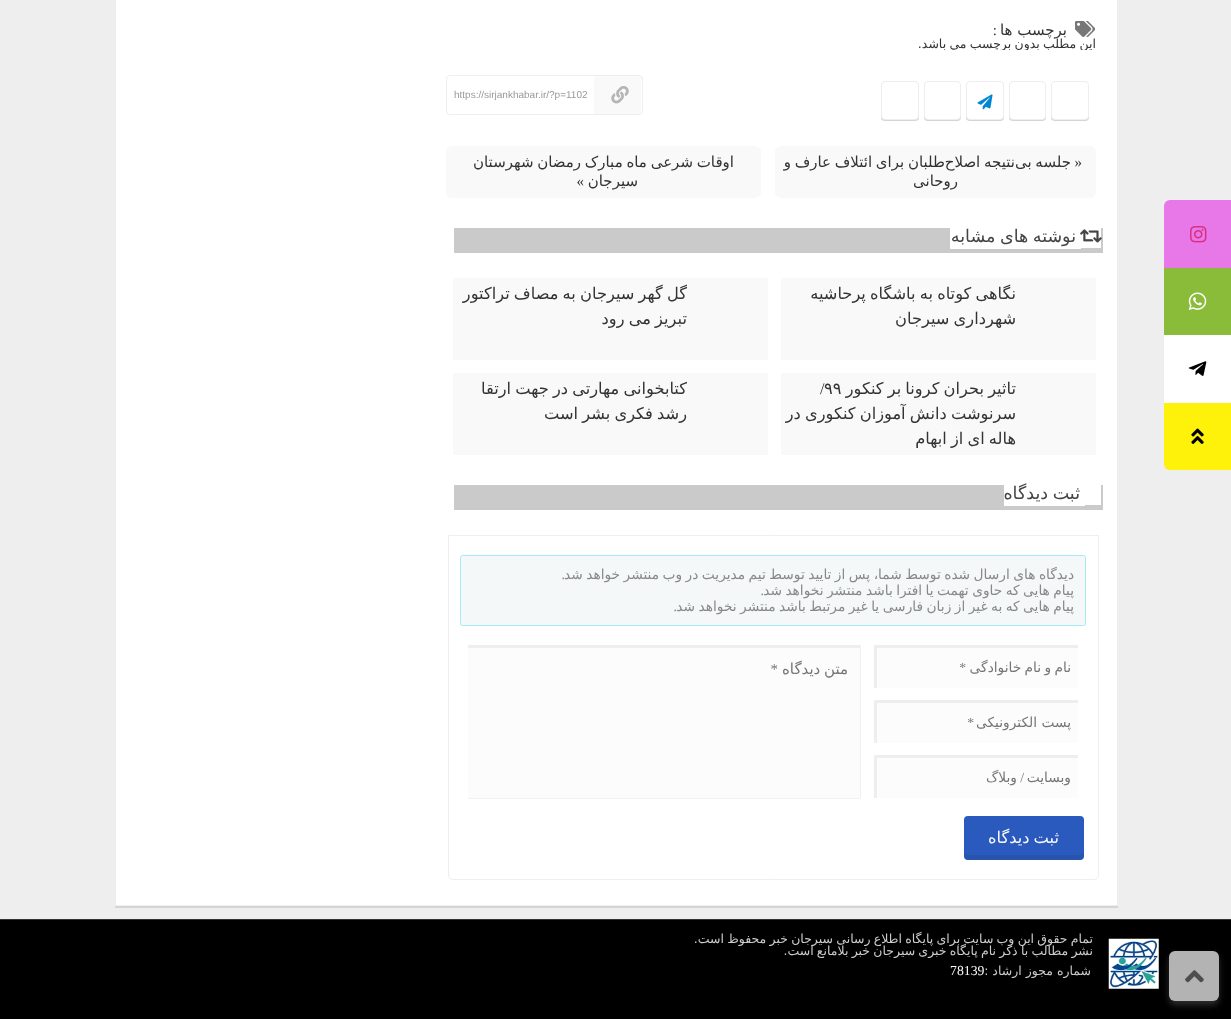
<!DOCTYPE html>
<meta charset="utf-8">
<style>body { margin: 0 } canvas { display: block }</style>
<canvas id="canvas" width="1231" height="1019"></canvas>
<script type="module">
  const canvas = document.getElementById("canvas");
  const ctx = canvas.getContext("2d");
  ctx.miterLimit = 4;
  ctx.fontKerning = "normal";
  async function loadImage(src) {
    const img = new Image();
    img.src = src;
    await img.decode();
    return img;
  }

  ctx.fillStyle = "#eeeeee";
  ctx.fillRect(0, 0, 1231, 1019);
  ctx.fillStyle = "#e878e8";
  ctx.beginPath();
  ctx.roundRect(1164, 200, 67, 68, [6, 0, 0, 0]);
  ctx.fill();
  ctx.drawImage(await loadImage("img1.png"), 1190, 226, 17, 17);
  ctx.fillStyle = "#8abc3a";
  ctx.fillRect(1164, 268, 67, 67);
  ctx.drawImage(await loadImage("img2.png"), 1188, 292, 19, 18);
  ctx.fillStyle = "#ffffff";
  ctx.fillRect(1164, 335, 67, 68);
  ctx.drawImage(await loadImage("img3.png"), 1188, 361, 19, 15);
  ctx.fillStyle = "#fff20a";
  ctx.beginPath();
  ctx.roundRect(1164, 403, 67, 67, [0, 0, 0, 6]);
  ctx.fill();
  ctx.drawImage(await loadImage("img4.png"), 1191, 428, 13, 16);
  ctx.fillStyle = "rgba(0, 0, 0, 0.1)";
  ctx.filter = "blur(0.5px)";
  ctx.beginPath();
  ctx.rect(115, -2, 1003, 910);
  ctx.fill();
  ctx.filter = "none";
  ctx.fillStyle = "#ffffff";
  ctx.beginPath();
  ctx.rect(115.5, -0.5, 1002, 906);
  ctx.fill();
  ctx.strokeStyle = "#eeeeee";
  ctx.stroke();
  ctx.drawImage(await loadImage("img5.png"), 1075, 21, 20, 16);
  ctx.direction = "rtl";
  ctx.font = "15px DejaVu Sans";
  ctx.fillStyle = "#333333";
  ctx.fillText("برچسب ها", 1067, 35);
  ctx.font = "15px Liberation Serif";
  ctx.fillText(":", 997, 35);
  ctx.save();
  ctx.beginPath();
  ctx.rect(405, 21, 690, 29);
  ctx.clip();
  ctx.wordSpacing = "-0.75px";
  ctx.font = "12.5px DejaVu Sans";
  ctx.fillText("این مطلب بدون برچسب می باشد.", 1096, 48);
  ctx.restore();
  ctx.fillStyle = "rgba(153, 153, 153, 0.42)";
  ctx.filter = "blur(0.5px)";
  ctx.beginPath();
  ctx.roundRect(1051, 83, 38, 38, 4);
  ctx.fill();
  ctx.filter = "none";
  ctx.fillStyle = "#ffffff";
  ctx.beginPath();
  ctx.roundRect(1051.5, 81.5, 37, 38, 3.5);
  ctx.fill();
  ctx.stroke();
  ctx.fillStyle = "rgba(153, 153, 153, 0.42)";
  ctx.filter = "blur(0.5px)";
  ctx.beginPath();
  ctx.roundRect(1009, 83, 37, 38, 4);
  ctx.fill();
  ctx.filter = "none";
  ctx.fillStyle = "#ffffff";
  ctx.beginPath();
  ctx.roundRect(1009.5, 81.5, 36, 38, 3.5);
  ctx.fill();
  ctx.stroke();
  ctx.fillStyle = "rgba(153, 153, 153, 0.42)";
  ctx.filter = "blur(0.5px)";
  ctx.beginPath();
  ctx.roundRect(966, 83, 38, 38, 4);
  ctx.fill();
  ctx.filter = "none";
  ctx.fillStyle = "#ffffff";
  ctx.beginPath();
  ctx.roundRect(966.5, 81.5, 37, 38, 3.5);
  ctx.fill();
  ctx.stroke();
  ctx.drawImage(await loadImage("img6.png"), 977, 94, 16, 16);
  ctx.fillStyle = "rgba(153, 153, 153, 0.42)";
  ctx.filter = "blur(0.5px)";
  ctx.beginPath();
  ctx.roundRect(924, 83, 37, 38, 4);
  ctx.fill();
  ctx.filter = "none";
  ctx.fillStyle = "#ffffff";
  ctx.beginPath();
  ctx.roundRect(924.5, 81.5, 36, 38, 3.5);
  ctx.fill();
  ctx.stroke();
  ctx.fillStyle = "rgba(153, 153, 153, 0.42)";
  ctx.filter = "blur(0.5px)";
  ctx.beginPath();
  ctx.roundRect(881, 83, 38, 38, 4);
  ctx.fill();
  ctx.filter = "none";
  ctx.fillStyle = "#ffffff";
  ctx.beginPath();
  ctx.roundRect(881.5, 81.5, 37, 38, 3.5);
  ctx.fill();
  ctx.stroke();
  ctx.beginPath();
  ctx.roundRect(446.5, 75.5, 196, 39, 3.5);
  ctx.stroke();
  ctx.fillStyle = "#f9f9f9";
  ctx.fillRect(594, 76, 47, 38);
  ctx.drawImage(await loadImage("img7.png"), 611, 86, 18, 18);
  ctx.fillStyle = "#ffffff";
  ctx.fillRect(448, 76, 1, 38);
  ctx.direction = "ltr";
  ctx.font = "10px Liberation Sans";
  ctx.fillStyle = "#999999";
  ctx.fillText("https://sirjankhabar.ir/?p=1102", 454, 98);
  ctx.fillStyle = "#f9f9f9";
  ctx.beginPath();
  ctx.roundRect(775, 146, 321, 52, 6);
  ctx.fill();
  ctx.direction = "rtl";
  ctx.font = "15px Liberation Serif";
  ctx.fillStyle = "#333333";
  ctx.fillText("«", 1082, 167);
  ctx.wordSpacing = "-1px";
  ctx.font = "15px DejaVu Sans";
  ctx.fillText("جلسه بی", 1071, 167);
  ctx.fillText("نتیجه اصلاح", 1015, 167);
  ctx.fillText("طلبان برای ائتلاف عارف و", 945, 167);
  ctx.wordSpacing = "0px";
  ctx.fillText("روحانی", 958, 186);
  ctx.fillStyle = "#f9f9f9";
  ctx.beginPath();
  ctx.roundRect(446, 146, 315, 52, 6);
  ctx.fill();
  ctx.wordSpacing = "-1px";
  ctx.fillStyle = "#333333";
  ctx.fillText("اوقات شرعی ماه مبارک رمضان شهرستان", 734, 167);
  ctx.wordSpacing = "0px";
  ctx.fillText("سیرجان", 638, 186);
  ctx.font = "15px Liberation Serif";
  ctx.fillText("»", 584, 186);
  ctx.fillStyle = "#cacaca";
  ctx.fillRect(454, 228, 649, 25);
  ctx.fillStyle = "#ffffff";
  ctx.fillRect(1081, 228, 20, 20);
  ctx.fillRect(950, 228, 131, 21);
  ctx.drawImage(await loadImage("img8.png"), 1080, 229, 22, 14);
  ctx.wordSpacing = "-1px";
  ctx.font = "17.5px DejaVu Sans";
  ctx.fillStyle = "#444444";
  ctx.fillText("نوشته های مشابه", 1076, 242);
  ctx.fillStyle = "#f9f9f9";
  ctx.fillRect(781, 278, 315, 82);
  ctx.font = "16.25px DejaVu Sans";
  ctx.fillStyle = "#333333";
  ctx.fillText("نگاهی کوتاه به باشگاه پرحاشیه", 1016, 299);
  ctx.fillText("شهرداری سیرجان", 1016, 324);
  ctx.fillStyle = "#f9f9f9";
  ctx.fillRect(453, 278, 315, 82);
  ctx.fillStyle = "#333333";
  ctx.fillText("گل گهر سیرجان به مصاف تراکتور", 687, 299);
  ctx.fillText("تبریز می رود", 687, 324);
  ctx.fillStyle = "#f9f9f9";
  ctx.fillRect(781, 373, 315, 82);
  ctx.fillStyle = "#333333";
  ctx.fillText("تاثیر بحران کرونا بر کنکور", 1016, 394);
  ctx.wordSpacing = "0px";
  ctx.direction = "ltr";
  ctx.font = "16.25px Liberation Serif";
  ctx.fillText("/", 820, 394);
  ctx.font = "16.25px DejaVu Sans";
  ctx.fillText("۹۹", 824, 394);
  ctx.wordSpacing = "-1px";
  ctx.direction = "rtl";
  ctx.fillText("سرنوشت دانش آموزان کنکوری در", 1016, 419);
  ctx.fillText("هاله ای از ابهام", 1016, 444);
  ctx.fillStyle = "#f9f9f9";
  ctx.fillRect(453, 373, 315, 82);
  ctx.fillStyle = "#333333";
  ctx.fillText("کتابخوانی مهارتی در جهت ارتقا", 687, 394);
  ctx.fillText("رشد فکری بشر است", 687, 419);
  ctx.fillStyle = "#cacaca";
  ctx.fillRect(454, 485, 649, 25);
  ctx.fillStyle = "#ffffff";
  ctx.fillRect(1004, 485, 81, 21);
  ctx.font = "17.5px DejaVu Sans";
  ctx.fillStyle = "#444444";
  ctx.fillText("ثبت دیدگاه", 1080, 499);
  ctx.fillStyle = "#ffffff";
  ctx.fillRect(1085, 485, 16, 20);
  ctx.beginPath();
  ctx.roundRect(448.5, 535.5, 650, 344, [0, 0, 4.5, 4.5]);
  ctx.stroke();
  ctx.fillStyle = "#f4f8f8";
  ctx.beginPath();
  ctx.roundRect(460.5, 555.5, 625, 70, 2);
  ctx.fill();
  ctx.strokeStyle = "#a6eaf6";
  ctx.stroke();
  ctx.wordSpacing = "-0.9px";
  ctx.font = "13.75px DejaVu Sans";
  ctx.fillStyle = "#888888";
  ctx.fillText("دیدگاه های ارسال شده توسط شما، پس از تایید توسط تیم مدیریت در وب منتشر خواهد شد", 1074, 579);
  ctx.wordSpacing = "0px";
  ctx.font = "13.75px Liberation Serif";
  ctx.fillText(".", 565, 579);
  ctx.wordSpacing = "-0.9px";
  ctx.font = "13.75px DejaVu Sans";
  ctx.fillText("پیام هایی که حاوی تهمت یا افترا باشد منتشر نخواهد شد", 1074, 595);
  ctx.wordSpacing = "0px";
  ctx.font = "13.75px Liberation Serif";
  ctx.fillText(".", 764, 595);
  ctx.wordSpacing = "-0.9px";
  ctx.font = "13.75px DejaVu Sans";
  ctx.fillText("پیام هایی که به غیر از زبان فارسی یا غیر مرتبط باشد منتشر نخواهد شد", 1074, 611);
  ctx.wordSpacing = "0px";
  ctx.font = "13.75px Liberation Serif";
  ctx.fillText(".", 677, 611);
  ctx.fillStyle = "#fcfcfc";
  ctx.fillRect(877, 648, 201, 40);
  ctx.fillStyle = "#eeeeee";
  ctx.fillRect(874, 645, 204, 3);
  ctx.fillRect(874, 645, 3, 43);
  ctx.wordSpacing = "-1px";
  ctx.font = "13.75px DejaVu Sans";
  ctx.fillStyle = "#757575";
  ctx.fillText("نام و نام خانوادگی", 1071, 672);
  ctx.wordSpacing = "0px";
  ctx.font = "13.75px Liberation Serif";
  ctx.fillText("*", 966, 672);
  ctx.fillStyle = "#fcfcfc";
  ctx.fillRect(877, 703, 201, 40);
  ctx.fillStyle = "#eeeeee";
  ctx.fillRect(874, 700, 204, 3);
  ctx.fillRect(874, 700, 3, 43);
  ctx.font = "13.75px DejaVu Sans";
  ctx.fillStyle = "#757575";
  ctx.fillText("پست الکترونیکی", 1071, 727);
  ctx.font = "13.75px Liberation Serif";
  ctx.fillText("*", 974, 727);
  ctx.fillStyle = "#fcfcfc";
  ctx.fillRect(877, 758, 201, 40);
  ctx.fillStyle = "#eeeeee";
  ctx.fillRect(874, 755, 204, 3);
  ctx.fillRect(874, 755, 3, 43);
  ctx.font = "13.75px DejaVu Sans";
  ctx.fillStyle = "#757575";
  ctx.fillText("وبسایت", 1071, 782);
  ctx.font = "13.75px Liberation Serif";
  ctx.fillText("/", 1024, 782);
  ctx.font = "13.75px DejaVu Sans";
  ctx.fillText("وبلاگ", 1017, 782);
  ctx.fillStyle = "#fcfcfc";
  ctx.fillRect(468, 648, 392, 150);
  ctx.save();
  ctx.beginPath();
  ctx.rect(468, 639, 393, 165);
  ctx.clip();
  ctx.fillStyle = "#eeeeee";
  ctx.beginPath();
  ctx.moveTo(462, 645);
  ctx.lineTo(861, 645);
  ctx.lineTo(860, 648);
  ctx.lineTo(465, 648);
  ctx.closePath();
  ctx.fill();
  ctx.restore();
  ctx.fillStyle = "#f1f1f1";
  ctx.beginPath();
  ctx.moveTo(861, 645);
  ctx.lineTo(861, 799);
  ctx.lineTo(860, 798);
  ctx.lineTo(860, 648);
  ctx.closePath();
  ctx.fill();
  ctx.save();
  ctx.beginPath();
  ctx.rect(468, 639, 393, 165);
  ctx.clip();
  ctx.beginPath();
  ctx.moveTo(861, 799);
  ctx.lineTo(462, 799);
  ctx.lineTo(465, 798);
  ctx.lineTo(860, 798);
  ctx.closePath();
  ctx.fill();
  ctx.restore();
  ctx.wordSpacing = "-1px";
  ctx.font = "15px DejaVu Sans";
  ctx.fillStyle = "#757575";
  ctx.fillText("متن دیدگاه", 848, 674);
  ctx.wordSpacing = "0px";
  ctx.font = "15px Liberation Serif";
  ctx.fillText("*", 778, 674);
  ctx.fillStyle = "#2a5abe";
  ctx.beginPath();
  ctx.roundRect(964, 816, 120, 44, 4);
  ctx.fill();
  ctx.fillStyle = "rgba(38, 38, 38, 0.1)";
  ctx.beginPath();
  ctx.moveTo(964, 851);
  ctx.lineTo(964, 856);
  ctx.bezierCurveTo(964, 858, 966, 860, 968, 860);
  ctx.lineTo(1080, 860);
  ctx.bezierCurveTo(1082, 860, 1084, 858, 1084, 856);
  ctx.lineTo(1084, 851);
  ctx.bezierCurveTo(1084, 853, 1082, 855, 1080, 855);
  ctx.lineTo(968, 855);
  ctx.bezierCurveTo(965, 855, 964, 853, 964, 851);
  ctx.closePath();
  ctx.fill();
  ctx.wordSpacing = "-1px";
  ctx.font = "16.25px DejaVu Sans";
  ctx.fillStyle = "#fafafa";
  ctx.fillText("ثبت دیدگاه", 1059, 843);
  ctx.fillStyle = "#000000";
  ctx.fillRect(0, 920, 1231, 99);
  ctx.fillStyle = "rgba(107, 107, 107, 0.42)";
  ctx.filter = "blur(3px)";
  ctx.beginPath();
  ctx.roundRect(1169, 955, 50, 50, 6);
  ctx.fill();
  ctx.filter = "none";
  ctx.fillStyle = "#b3b3b3";
  ctx.beginPath();
  ctx.roundRect(1169, 951, 50, 50, 6);
  ctx.fill();
  ctx.drawImage(await loadImage("img9.png"), 1185, 970, 19, 13);
  ctx.fillStyle = "#333333";
  ctx.fillRect(0, 919, 1231, 1);
  ctx.drawImage(await loadImage("img10.png"), 1108, 938, 51, 51);
  ctx.wordSpacing = "-0.75px";
  ctx.font = "12.5px DejaVu Sans";
  ctx.fillStyle = "#cccccc";
  ctx.fillText("تمام حقوق این وب سایت برای پایگاه اطلاع رسانی سیرجان خبر محفوظ است.", 1093, 943);
  ctx.fillText("نشر مطالب با ذکر نام پایگاه خبری سیرجان خبر بلامانع است.", 1093, 955);
  ctx.wordSpacing = "0px";
  ctx.fillText("شماره مجوز ارشاد :", 1091, 975);
  ctx.direction = "ltr";
  ctx.font = "13.75px Liberation Serif";
  ctx.fillStyle = "#fafafa";
  ctx.fillText("78139", 950, 975);
</script>
